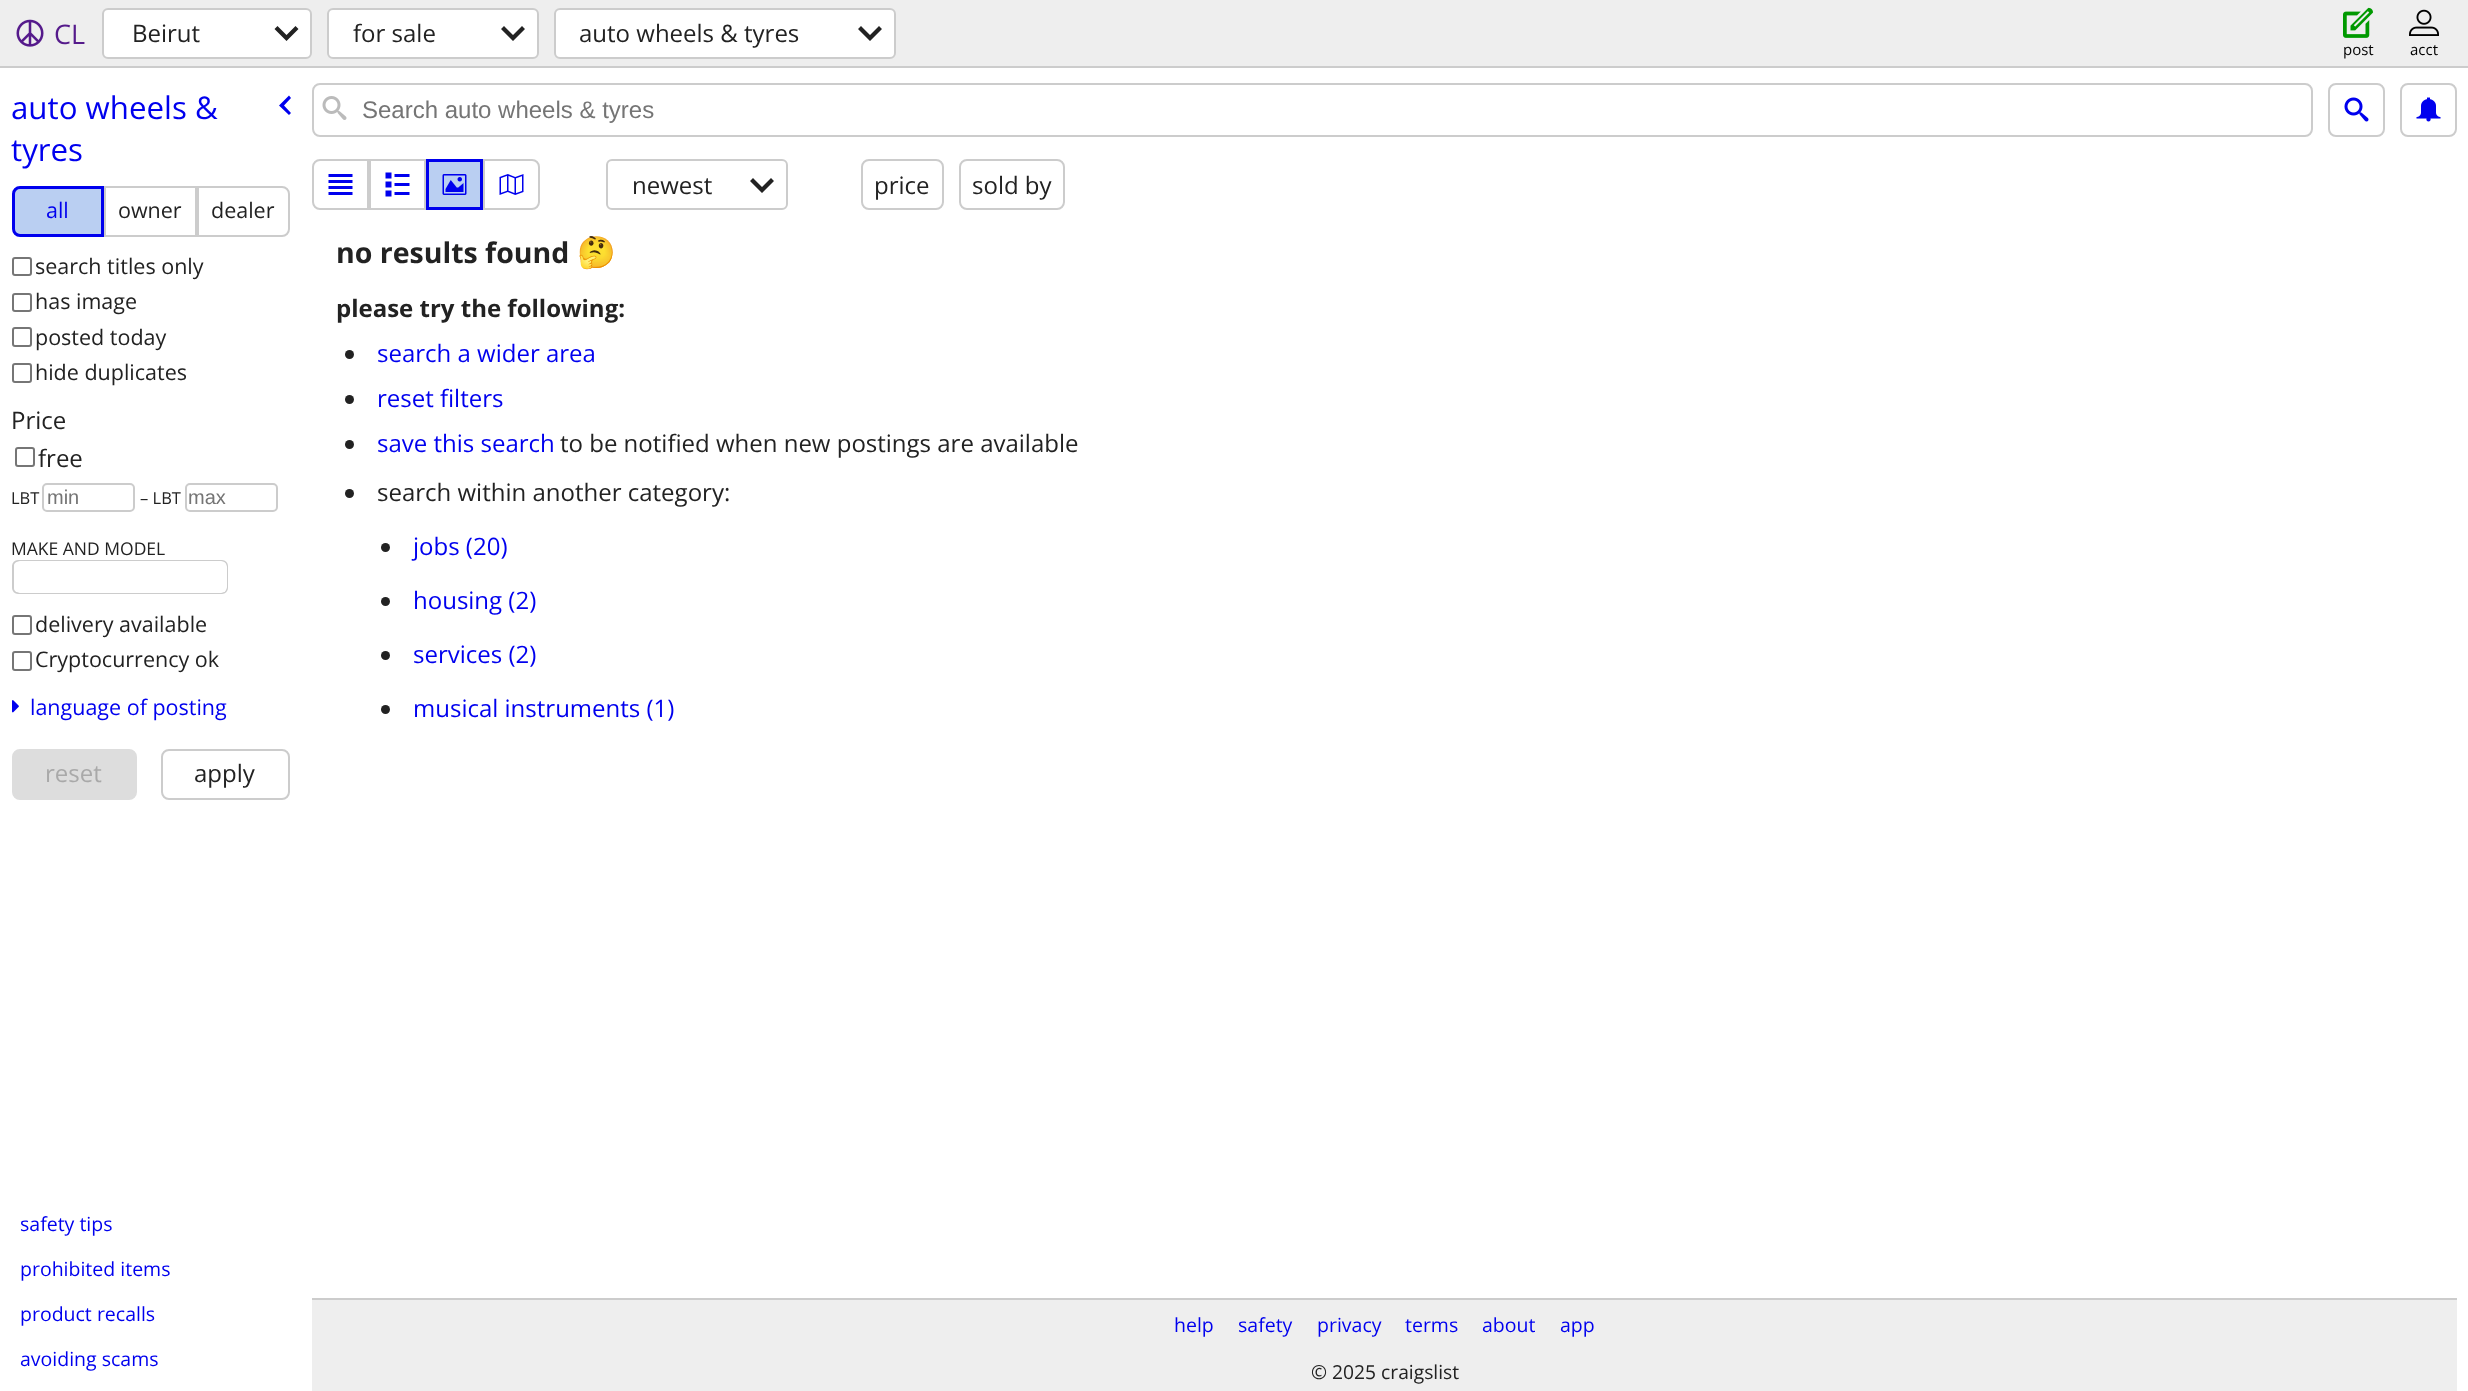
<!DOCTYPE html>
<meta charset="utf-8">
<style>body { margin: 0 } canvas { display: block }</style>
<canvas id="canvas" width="2468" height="1391"></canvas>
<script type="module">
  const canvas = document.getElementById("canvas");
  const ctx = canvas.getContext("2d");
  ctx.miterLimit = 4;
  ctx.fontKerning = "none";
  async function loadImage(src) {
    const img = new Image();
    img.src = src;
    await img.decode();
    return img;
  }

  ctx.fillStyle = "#ffffff";
  ctx.fillRect(0, 0, 2468, 1391);
  ctx.fillStyle = "#eeeeee";
  ctx.fillRect(0, 0, 2468, 66);
  ctx.fillStyle = "#cccccc";
  ctx.fillRect(0, 66, 2468, 2);
  ctx.drawImage(await loadImage("img1.png"), 16, 19, 28, 28);
  ctx.font = "27px Open Sans";
  ctx.fillStyle = "#551a8b";
  ctx.fillText("CL", 54, 44);
  ctx.fillStyle = "#ffffff";
  ctx.beginPath();
  ctx.roundRect(103, 9, 208, 49, 5);
  ctx.fill();
  ctx.strokeStyle = "#cccccc";
  ctx.lineWidth = 2;
  ctx.stroke();
  ctx.font = "24px Open Sans";
  ctx.fillStyle = "#222222";
  ctx.fillText("Beirut", 132, 42);
  ctx.beginPath();
  ctx.moveTo(298.5, 29);
  ctx.lineTo(295.5, 26);
  ctx.lineTo(286.5, 35);
  ctx.lineTo(277.5, 26);
  ctx.lineTo(274.5, 29);
  ctx.lineTo(286.5, 41);
  ctx.closePath();
  ctx.fill();
  ctx.fillStyle = "#ffffff";
  ctx.beginPath();
  ctx.roundRect(328, 9, 210, 49, 5);
  ctx.fill();
  ctx.stroke();
  ctx.fillStyle = "#222222";
  ctx.fillText("for sale", 353, 42);
  ctx.beginPath();
  ctx.moveTo(525, 29);
  ctx.lineTo(522, 26);
  ctx.lineTo(513, 35);
  ctx.lineTo(504, 26);
  ctx.lineTo(501, 29);
  ctx.lineTo(513, 41);
  ctx.closePath();
  ctx.fill();
  ctx.fillStyle = "#ffffff";
  ctx.beginPath();
  ctx.roundRect(555, 9, 340, 49, 5);
  ctx.fill();
  ctx.stroke();
  ctx.fillStyle = "#222222";
  ctx.fillText("auto wheels & tyres", 579, 42);
  ctx.beginPath();
  ctx.moveTo(882, 29);
  ctx.lineTo(879, 26);
  ctx.lineTo(870, 35);
  ctx.lineTo(861, 26);
  ctx.lineTo(858, 29);
  ctx.lineTo(870, 41);
  ctx.closePath();
  ctx.fill();
  ctx.drawImage(await loadImage("img2.png"), 2343, 7, 30, 31);
  ctx.font = "15px Open Sans";
  ctx.fillStyle = "#000000";
  ctx.fillText("post", 2343, 55);
  ctx.drawImage(await loadImage("img3.png"), 2409, 9, 30, 27);
  ctx.fillText("acct", 2410, 55);
  ctx.font = "31.25px Open Sans";
  ctx.fillStyle = "#0000ee";
  ctx.fillText("auto wheels &", 11, 119);
  ctx.fillText("tyres", 11, 161);
  ctx.beginPath();
  ctx.moveTo(289, 115);
  ctx.lineTo(291, 113);
  ctx.lineTo(284, 105.5);
  ctx.lineTo(291, 98);
  ctx.lineTo(289, 95.5);
  ctx.lineTo(279, 105.5);
  ctx.closePath();
  ctx.fill();
  ctx.fillStyle = "#bacff2";
  ctx.beginPath();
  ctx.roundRect(13.5, 187.5, 89, 48, [6.5, 0, 0, 6.5]);
  ctx.fill();
  ctx.strokeStyle = "#0000ee";
  ctx.lineWidth = 3;
  ctx.stroke();
  ctx.font = "21.5px Open Sans";
  ctx.fillStyle = "#0000ee";
  ctx.fillText("all", 46, 218);
  ctx.strokeStyle = "#cccccc";
  ctx.lineWidth = 2;
  ctx.strokeRect(105, 187, 91, 49);
  ctx.fillStyle = "#222222";
  ctx.fillText("owner", 118, 218);
  ctx.beginPath();
  ctx.roundRect(198, 187, 91, 49, [0, 7, 7, 0]);
  ctx.stroke();
  ctx.fillText("dealer", 211, 218);
  ctx.beginPath();
  ctx.roundRect(13, 258, 18, 17, 2);
  ctx.strokeStyle = "#767676";
  ctx.stroke();
  ctx.fillText("search titles only", 35, 274);
  ctx.beginPath();
  ctx.roundRect(13, 294, 18, 17, 2);
  ctx.stroke();
  ctx.fillText("has image", 35, 309);
  ctx.beginPath();
  ctx.roundRect(13, 328, 18, 18, 2);
  ctx.stroke();
  ctx.fillText("posted today", 35, 345);
  ctx.beginPath();
  ctx.roundRect(13, 364, 18, 18, 2);
  ctx.stroke();
  ctx.fillText("hide duplicates", 35, 380);
  ctx.font = "24px Open Sans";
  ctx.fillText("Price", 11, 429);
  ctx.beginPath();
  ctx.roundRect(16, 448, 18, 18, 2);
  ctx.stroke();
  ctx.fillText("free", 38, 467);
  ctx.font = "16.5px Open Sans";
  ctx.fillText("LBT", 11, 504);
  ctx.beginPath();
  ctx.roundRect(43, 484, 91, 27, 4);
  ctx.strokeStyle = "#cccccc";
  ctx.stroke();
  ctx.font = "20px Liberation Sans";
  ctx.fillStyle = "#757575";
  ctx.fillText("min", 47, 504);
  ctx.font = "16.5px Open Sans";
  ctx.fillStyle = "#222222";
  ctx.fillText("– LBT", 140, 504);
  ctx.beginPath();
  ctx.roundRect(186, 484, 91, 27, 4);
  ctx.stroke();
  ctx.font = "20px Liberation Sans";
  ctx.fillStyle = "#757575";
  ctx.fillText("max", 188, 504);
  ctx.font = "17.5px Open Sans";
  ctx.fillStyle = "#222222";
  ctx.fillText("MAKE AND MODEL", 11, 555);
  ctx.beginPath();
  ctx.roundRect(13, 561, 214, 32, 5);
  ctx.stroke();
  ctx.save();
  ctx.beginPath();
  ctx.roundRect(14, 561, 213, 32, 5);
  ctx.clip();
  ctx.fillStyle = "#ffffff";
  ctx.beginPath();
  ctx.roundRect(14, 561, 213, 32, 6);
  ctx.fill();
  ctx.restore();
  ctx.beginPath();
  ctx.roundRect(13, 616, 18, 18, 2);
  ctx.strokeStyle = "#767676";
  ctx.stroke();
  ctx.font = "21.5px Open Sans";
  ctx.fillText("delivery available", 35, 632);
  ctx.beginPath();
  ctx.roundRect(13, 652, 18, 18, 2);
  ctx.stroke();
  ctx.fillText("Cryptocurrency ok", 35, 667);
  ctx.drawImage(await loadImage("img4.png"), 12, 700, 7, 13);
  ctx.fillStyle = "#0000ee";
  ctx.fillText("language of posting", 30, 715);
  ctx.fillStyle = "#dddddd";
  ctx.beginPath();
  ctx.roundRect(13, 750, 123, 49, 7);
  ctx.fill();
  ctx.strokeStyle = "#dddddd";
  ctx.stroke();
  ctx.font = "24px Open Sans";
  ctx.fillStyle = "#a9a9a9";
  ctx.fillText("reset", 45, 782);
  ctx.beginPath();
  ctx.roundRect(162, 750, 127, 49, 7);
  ctx.strokeStyle = "#cccccc";
  ctx.stroke();
  ctx.fillStyle = "#222222";
  ctx.fillText("apply", 194, 782);
  ctx.font = "19.5px Open Sans";
  ctx.fillStyle = "#0000ee";
  ctx.fillText("safety tips", 20, 1231);
  ctx.fillText("prohibited items", 20, 1276);
  ctx.fillText("product recalls", 20, 1321);
  ctx.fillText("avoiding scams", 20, 1366);
  ctx.beginPath();
  ctx.roundRect(313, 84, 1999, 52, 7);
  ctx.stroke();
  ctx.drawImage(await loadImage("img5.png"), 322, 96, 25, 24);
  ctx.font = "24px Liberation Sans";
  ctx.fillStyle = "#757575";
  ctx.fillText("Search auto wheels & tyres", 362, 118);
  ctx.beginPath();
  ctx.roundRect(2329, 84, 55, 52, 7);
  ctx.stroke();
  ctx.drawImage(await loadImage("img6.png"), 2344, 97, 25, 25);
  ctx.beginPath();
  ctx.roundRect(2401, 84, 55, 52, 7);
  ctx.stroke();
  ctx.drawImage(await loadImage("img7.png"), 2416, 97, 25, 25);
  ctx.beginPath();
  ctx.roundRect(313, 160, 55, 49, [7, 0, 0, 7]);
  ctx.stroke();
  ctx.drawImage(await loadImage("img8.png"), 328, 174, 25, 21);
  ctx.strokeRect(370, 160, 55, 49);
  ctx.drawImage(await loadImage("img9.png"), 385, 172, 25, 25);
  ctx.fillStyle = "#bacff2";
  ctx.beginPath();
  ctx.rect(427.5, 160.5, 54, 48);
  ctx.fill();
  ctx.strokeStyle = "#0000ee";
  ctx.lineWidth = 3;
  ctx.stroke();
  ctx.drawImage(await loadImage("img10.png"), 442, 174, 25, 21);
  ctx.beginPath();
  ctx.roundRect(484, 160, 55, 49, [0, 7, 7, 0]);
  ctx.strokeStyle = "#cccccc";
  ctx.lineWidth = 2;
  ctx.stroke();
  ctx.drawImage(await loadImage("img11.png"), 499, 174, 25, 21);
  ctx.beginPath();
  ctx.roundRect(607, 160, 180, 49, 5);
  ctx.stroke();
  ctx.font = "24px Open Sans";
  ctx.fillStyle = "#222222";
  ctx.fillText("newest", 632, 194);
  ctx.beginPath();
  ctx.moveTo(774, 181);
  ctx.lineTo(771, 178);
  ctx.lineTo(762, 187);
  ctx.lineTo(753, 178);
  ctx.lineTo(750, 181);
  ctx.lineTo(762, 193);
  ctx.closePath();
  ctx.fill();
  ctx.beginPath();
  ctx.roundRect(862, 160, 81, 49, 7);
  ctx.stroke();
  ctx.fillText("price", 874, 194);
  ctx.beginPath();
  ctx.roundRect(960, 160, 104, 49, 7);
  ctx.stroke();
  ctx.fillText("sold by", 972, 194);
  ctx.font = "bold 28.5px Open Sans";
  ctx.fillText("no results found", 336, 263);
  ctx.font = "bold 31px Noto Color Emoji";
  ctx.fillText("🤔", 577, 263);
  ctx.font = "bold 24px Open Sans";
  ctx.fillText("please try the following:", 336, 317);
  ctx.beginPath();
  ctx.arc(349.5, 354.5, 4.5, 0, Math.PI * 2);
  ctx.fill();
  ctx.font = "24px Open Sans";
  ctx.fillStyle = "#0000ee";
  ctx.fillText("search a wider area", 377, 362);
  ctx.fillStyle = "#222222";
  ctx.beginPath();
  ctx.arc(349.5, 399.5, 4.5, 0, Math.PI * 2);
  ctx.fill();
  ctx.fillStyle = "#0000ee";
  ctx.fillText("reset filters", 377, 407);
  ctx.fillStyle = "#222222";
  ctx.beginPath();
  ctx.arc(349.5, 444.5, 4.5, 0, Math.PI * 2);
  ctx.fill();
  ctx.fillStyle = "#0000ee";
  ctx.fillText("save this search", 377, 452);
  ctx.fillStyle = "#222222";
  ctx.fillText("to be notified when new postings are available", 560, 452);
  ctx.beginPath();
  ctx.arc(349.5, 493.5, 4.5, 0, Math.PI * 2);
  ctx.fill();
  ctx.fillText("search within another category:", 377, 501);
  ctx.beginPath();
  ctx.arc(385.5, 547.5, 4.5, 0, Math.PI * 2);
  ctx.fill();
  ctx.fillStyle = "#0000ee";
  ctx.fillText("jobs (20)", 413, 555);
  ctx.fillStyle = "#222222";
  ctx.beginPath();
  ctx.arc(385.5, 601.5, 4.5, 0, Math.PI * 2);
  ctx.fill();
  ctx.fillStyle = "#0000ee";
  ctx.fillText("housing (2)", 413, 609);
  ctx.fillStyle = "#222222";
  ctx.beginPath();
  ctx.arc(385.5, 655.5, 4.5, 0, Math.PI * 2);
  ctx.fill();
  ctx.fillStyle = "#0000ee";
  ctx.fillText("services (2)", 413, 663);
  ctx.fillStyle = "#222222";
  ctx.beginPath();
  ctx.arc(385.5, 709.5, 4.5, 0, Math.PI * 2);
  ctx.fill();
  ctx.fillStyle = "#0000ee";
  ctx.fillText("musical instruments (1)", 413, 717);
  ctx.fillStyle = "#eeeeee";
  ctx.fillRect(312, 1300, 2145, 91);
  ctx.fillStyle = "#cccccc";
  ctx.fillRect(312, 1298, 2145, 2);
  ctx.font = "19.5px Open Sans";
  ctx.fillStyle = "#0000ee";
  ctx.fillText("help", 1174, 1332);
  ctx.fillText("safety", 1238, 1332);
  ctx.fillText("privacy", 1317, 1332);
  ctx.fillText("terms", 1405, 1332);
  ctx.fillText("about", 1482, 1332);
  ctx.fillText("app", 1560, 1332);
  ctx.font = "19.25px Open Sans";
  ctx.fillStyle = "#222222";
  ctx.fillText("© 2025 craigslist", 1311, 1379);
</script>
